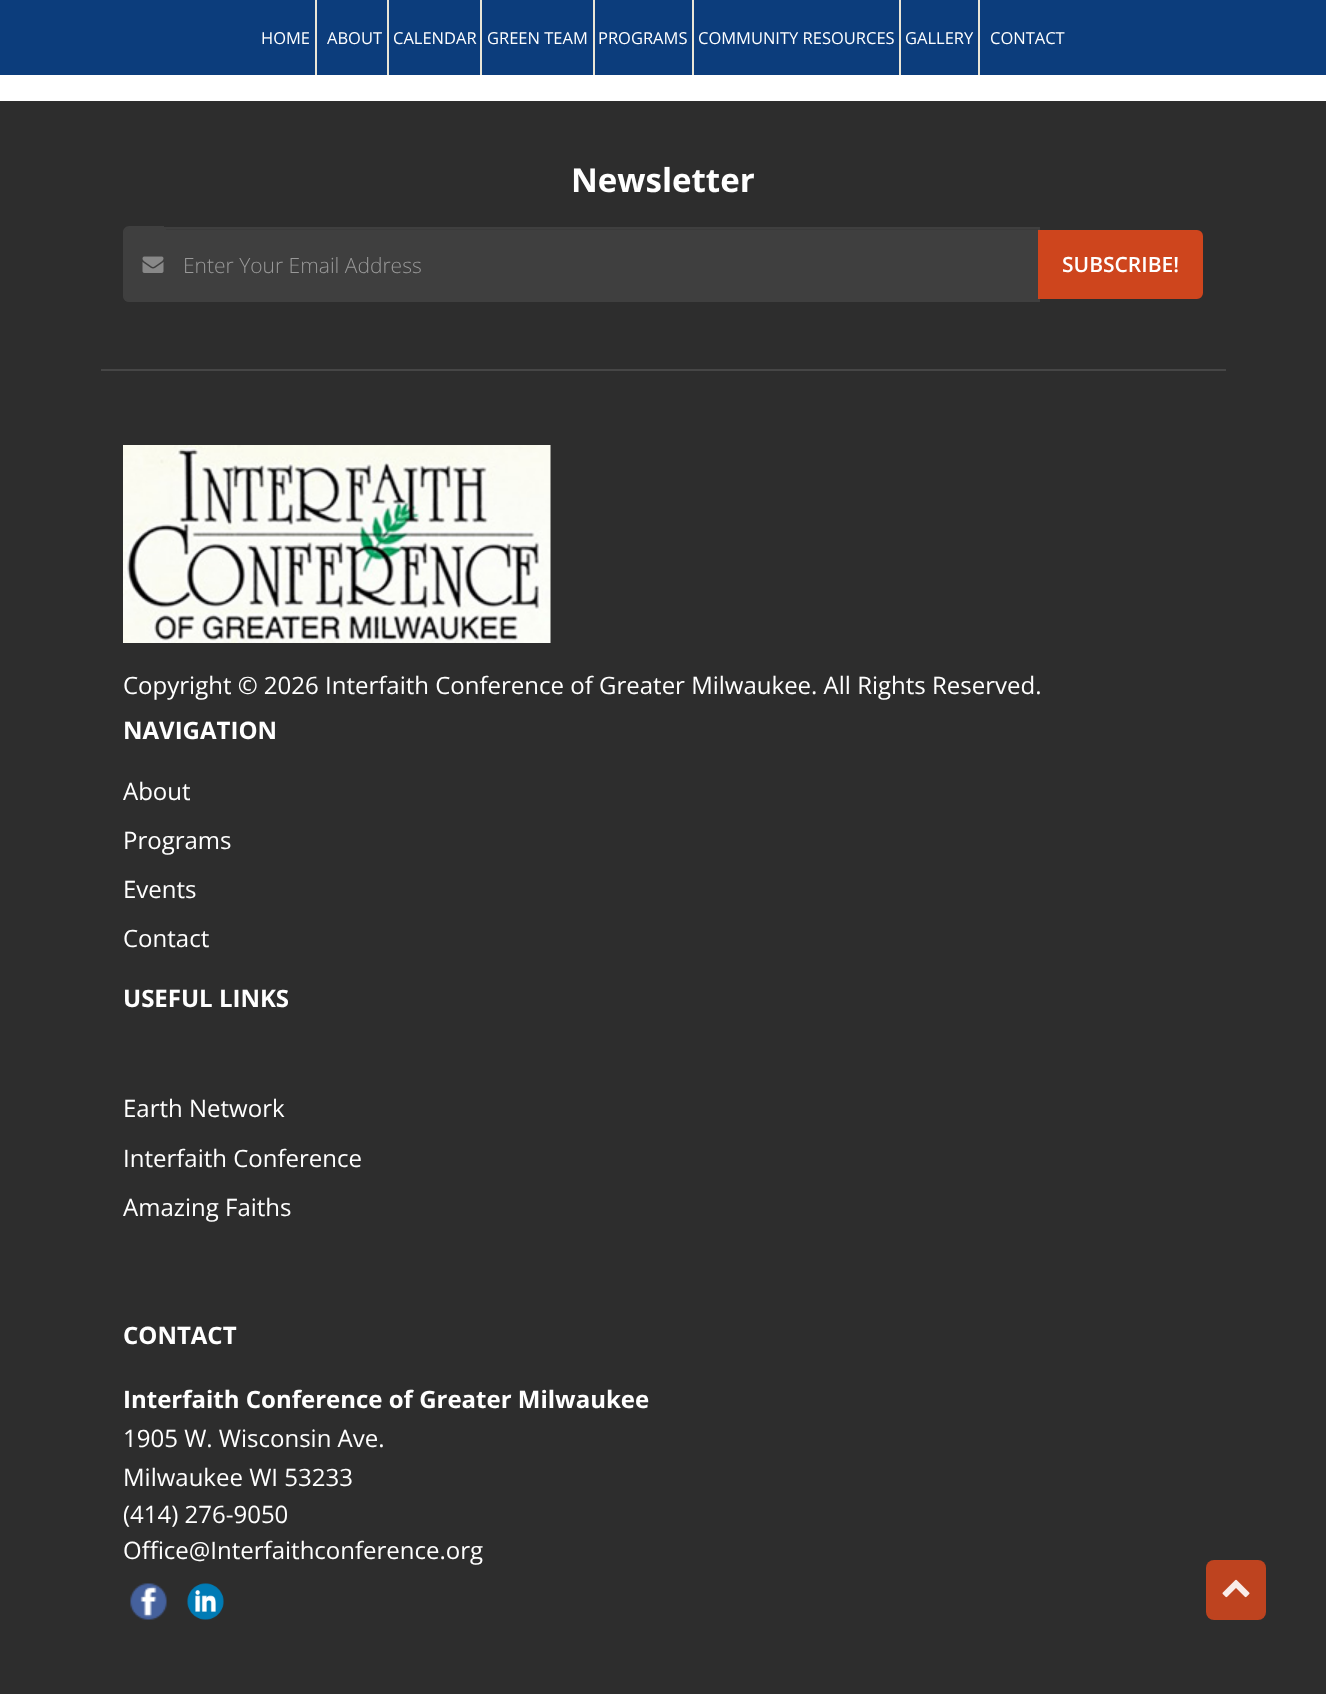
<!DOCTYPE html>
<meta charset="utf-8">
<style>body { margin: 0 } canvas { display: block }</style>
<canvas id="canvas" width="1326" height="1694"></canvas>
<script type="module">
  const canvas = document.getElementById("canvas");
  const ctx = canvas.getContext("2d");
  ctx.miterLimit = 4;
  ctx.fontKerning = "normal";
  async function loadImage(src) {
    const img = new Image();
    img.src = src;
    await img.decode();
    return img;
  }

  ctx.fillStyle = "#ffffff";
  ctx.fillRect(0, 0, 1326, 1694);
  ctx.fillStyle = "#0c3d7c";
  ctx.fillRect(0, 0, 1326, 75);
  ctx.fillStyle = "#ebe6d6";
  ctx.fillRect(315, 0, 2, 75);
  ctx.font = "16.5px Open Sans";
  ctx.fillStyle = "#ffffff";
  ctx.fillText("HOME", 261, 44);
  ctx.fillStyle = "#ebe6d6";
  ctx.fillRect(387, 0, 2, 75);
  ctx.fillStyle = "#ffffff";
  ctx.fillText("ABOUT", 327, 44);
  ctx.fillStyle = "#ebe6d6";
  ctx.fillRect(480, 0, 2, 75);
  ctx.fillStyle = "#ffffff";
  ctx.fillText("CALENDAR", 393, 44);
  ctx.fillStyle = "#ebe6d6";
  ctx.fillRect(593, 0, 2, 75);
  ctx.fillStyle = "#ffffff";
  ctx.fillText("GREEN TEAM", 487, 44);
  ctx.fillStyle = "#ebe6d6";
  ctx.fillRect(692, 0, 2, 75);
  ctx.fillStyle = "#ffffff";
  ctx.fillText("PROGRAMS", 598, 44);
  ctx.fillStyle = "#ebe6d6";
  ctx.fillRect(899, 0, 2, 75);
  ctx.fillStyle = "#ffffff";
  ctx.fillText("COMMUNITY RESOURCES", 698, 44);
  ctx.fillStyle = "#ebe6d6";
  ctx.fillRect(978, 0, 2, 75);
  ctx.fillStyle = "#ffffff";
  ctx.fillText("GALLERY", 905, 44);
  ctx.fillText("CONTACT", 990, 44);
  ctx.fillStyle = "#2d2d2d";
  ctx.fillRect(0, 101, 1326, 1593);
  ctx.fillStyle = "#464646";
  ctx.fillRect(101, 369, 1125, 2);
  ctx.font = "bold 33px Open Sans";
  ctx.fillStyle = "#ffffff";
  ctx.fillText("Newsletter", 571, 192);
  ctx.fillStyle = "#3f3f3f";
  ctx.beginPath();
  ctx.roundRect(123, 227, 41, 75, [6, 0, 0, 6]);
  ctx.fill();
  ctx.beginPath();
  ctx.moveTo(129, 226);
  ctx.lineTo(164, 226);
  ctx.lineTo(164, 302);
  ctx.lineTo(129, 302);
  ctx.bezierCurveTo(126, 302, 123, 299, 123, 296);
  ctx.lineTo(123, 232);
  ctx.bezierCurveTo(123, 229, 126, 226, 129, 226);
  ctx.closePath();
  ctx.moveTo(129, 228);
  ctx.lineTo(164, 228);
  ctx.lineTo(164, 300);
  ctx.lineTo(129, 300);
  ctx.bezierCurveTo(127, 300, 124, 298, 124, 296);
  ctx.lineTo(124, 232);
  ctx.bezierCurveTo(124, 230, 127, 228, 129, 228);
  ctx.closePath();
  ctx.fill("evenodd");
  ctx.drawImage(await loadImage("img1.png"), 142, 256, 22, 17);
  ctx.fillRect(166, 230, 872, 70);
  ctx.fillStyle = "#3a3a3a";
  ctx.fillRect(165, 229, 873, 1);
  ctx.strokeStyle = "#3f3f3f";
  ctx.lineWidth = 2;
  ctx.strokeRect(165, 228, 874, 73);
  ctx.font = "300 21px Open Sans";
  ctx.fillStyle = "#999999";
  ctx.fillText("Enter Your Email Address", 183, 273);
  ctx.fillStyle = "#ce451d";
  ctx.beginPath();
  ctx.roundRect(1039, 231, 163, 67, [0, 5, 5, 0]);
  ctx.fill();
  ctx.strokeStyle = "#ce451d";
  ctx.stroke();
  ctx.font = "600 21px Open Sans";
  ctx.fillStyle = "#ffffff";
  ctx.fillText("SUBSCRIBE!", 1062, 272);
  ctx.drawImage(await loadImage("img2.png"), 123, 445, 428, 198);
  ctx.font = "24px Open Sans";
  ctx.fillText("Copyright © 2026 Interfaith Conference of Greater Milwaukee. All Rights Reserved.", 123, 694);
  ctx.font = "bold 24px Open Sans";
  ctx.fillText("NAVIGATION", 123, 739);
  ctx.font = "24px Open Sans";
  ctx.fillText("About", 123, 800);
  ctx.fillText("Programs", 123, 849);
  ctx.fillText("Events", 123, 898);
  ctx.fillText("Contact", 123, 947);
  ctx.font = "bold 24px Open Sans";
  ctx.fillText("USEFUL LINKS", 123, 1007);
  ctx.font = "24px Open Sans";
  ctx.fillText("Earth Network", 123, 1117);
  ctx.fillText("Interfaith Conference", 123, 1167);
  ctx.fillText("Amazing Faiths", 123, 1216);
  ctx.font = "bold 24px Open Sans";
  ctx.fillText("CONTACT", 123, 1344);
  ctx.fillText("Interfaith Conference of Greater Milwaukee", 123, 1408);
  ctx.font = "24px Open Sans";
  ctx.fillText("1905 W. Wisconsin Ave.", 123, 1447);
  ctx.fillText("Milwaukee WI 53233", 123, 1486);
  ctx.fillText("(414) 276-9050", 123, 1523);
  ctx.fillText("Office@Interfaithconference.org", 123, 1559);
  ctx.drawImage(await loadImage("img3.png"), 130, 1583, 37, 37);
  ctx.drawImage(await loadImage("img4.png"), 187, 1583, 37, 37);
  ctx.fillStyle = "#be431f";
  ctx.beginPath();
  ctx.roundRect(1206, 1560, 60, 60, 8);
  ctx.fill();
  ctx.drawImage(await loadImage("img5.png"), 1222, 1579, 28, 19);
</script>
